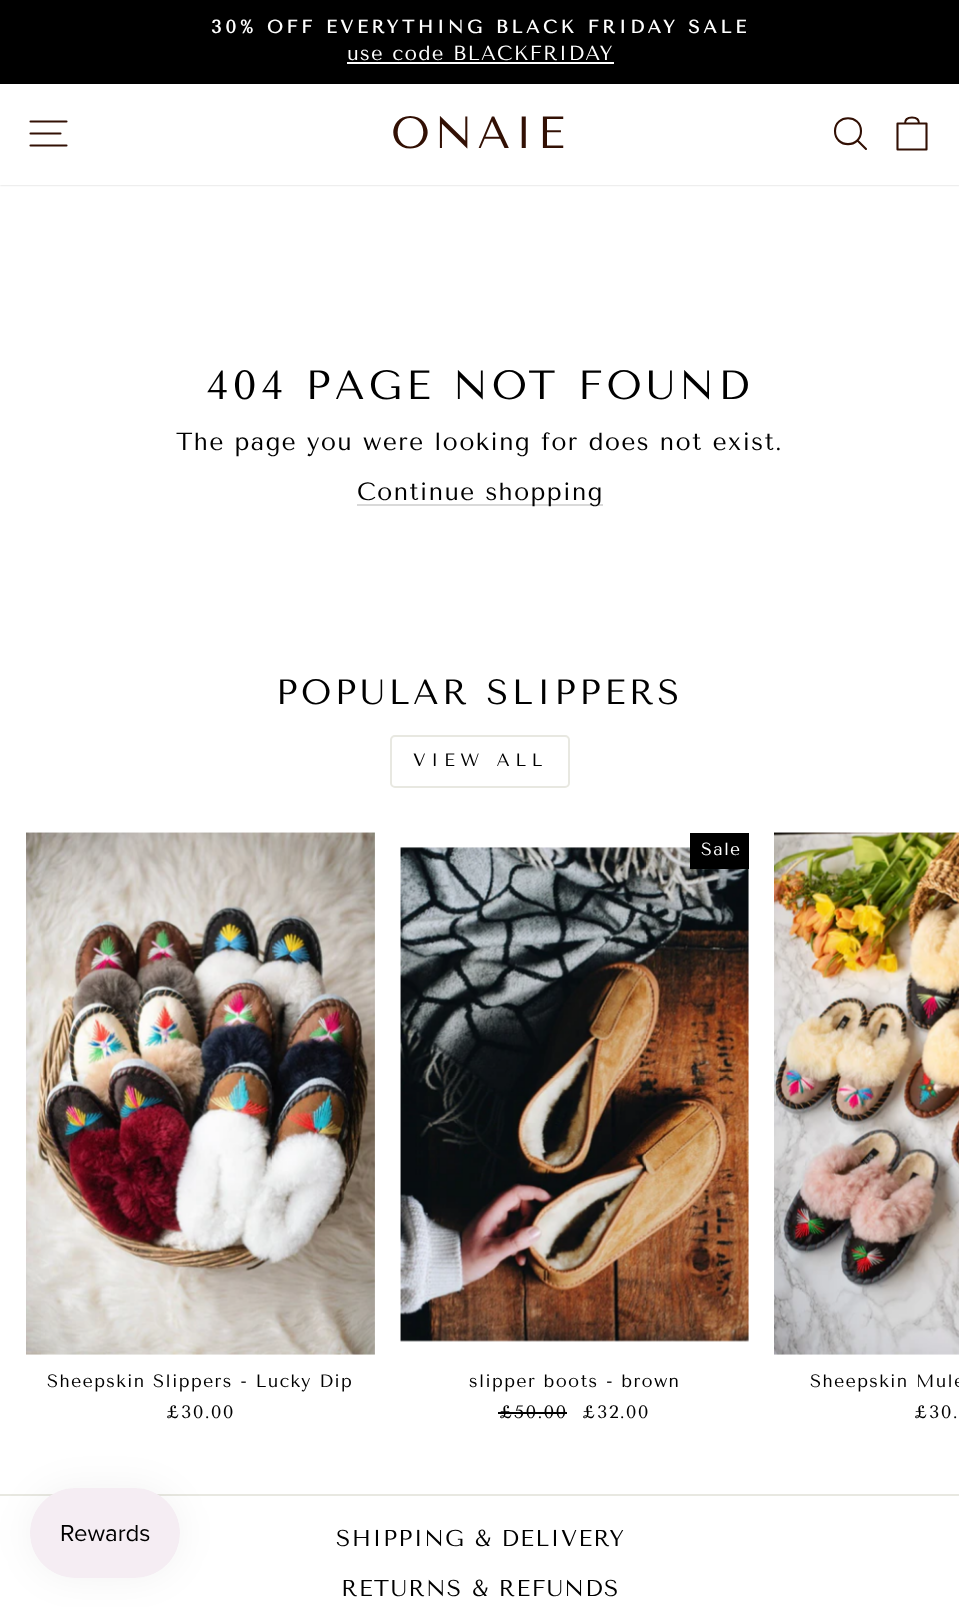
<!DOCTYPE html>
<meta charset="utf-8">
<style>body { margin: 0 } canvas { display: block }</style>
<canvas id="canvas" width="959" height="1607"></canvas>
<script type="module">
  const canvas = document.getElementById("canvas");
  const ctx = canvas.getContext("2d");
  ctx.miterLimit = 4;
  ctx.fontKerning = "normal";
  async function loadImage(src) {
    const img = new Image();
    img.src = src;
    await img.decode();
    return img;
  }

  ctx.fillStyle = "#ffffff";
  ctx.fillRect(0, 0, 959, 1607);
  ctx.fillStyle = "#000000";
  ctx.fillRect(0, 0, 959, 84);
  ctx.letterSpacing = "3.65px";
  ctx.font = "bold 18.25px Tenor Sans";
  ctx.fillStyle = "#ffffff";
  ctx.fillText("30% OFF EVERYTHING BLACK FRIDAY SALE", 211, 33);
  ctx.letterSpacing = "1.25px";
  ctx.font = "20.25px Tenor Sans";
  ctx.fillText("use code BLACKFRIDAY", 347, 60);
  ctx.fillRect(347, 62, 267, 2);
  ctx.fillStyle = "rgba(0, 0, 0, 0.2)";
  ctx.filter = "blur(1px)";
  ctx.beginPath();
  ctx.rect(0, 84, 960, 101);
  ctx.fill();
  ctx.filter = "none";
  ctx.fillStyle = "#ffffff";
  ctx.fillRect(0, 84, 959, 101);
  ctx.beginPath();
  ctx.moveTo(30.5, 121.5);
  ctx.lineTo(66.5, 121.5);
  ctx.moveTo(30.5, 133.5);
  ctx.lineTo(60.5, 133.5);
  ctx.moveTo(30.5, 145.5);
  ctx.lineTo(66.5, 145.5);
  ctx.strokeStyle = "#321004";
  ctx.lineWidth = 2.1;
  ctx.lineCap = "round";
  ctx.lineJoin = "round";
  ctx.stroke();
  ctx.letterSpacing = "4.5px";
  ctx.font = "45px Tenor Sans";
  ctx.fillStyle = "#321004";
  ctx.fillText("ONAIE", 391, 148);
  ctx.beginPath();
  ctx.moveTo(861, 131);
  ctx.bezierCurveTo(861, 148.5, 835, 148.5, 835, 131);
  ctx.bezierCurveTo(835, 114, 861, 114, 861, 131);
  ctx.closePath();
  ctx.moveTo(866, 149);
  ctx.lineTo(857.5, 140.5);
  ctx.stroke();
  ctx.beginPath();
  ctx.moveTo(897.5, 123.5);
  ctx.lineTo(926.5, 123.5);
  ctx.lineTo(926.5, 149.5);
  ctx.lineTo(897.5, 149.5);
  ctx.closePath();
  ctx.moveTo(905, 123.5);
  ctx.bezierCurveTo(905, 118.5, 908, 117.5, 912, 117.5);
  ctx.bezierCurveTo(916, 117.5, 919, 118.5, 919, 123.5);
  ctx.stroke();
  ctx.letterSpacing = "4.1px";
  ctx.font = "40.75px Tenor Sans";
  ctx.fillStyle = "#000000";
  ctx.fillText("404 PAGE NOT FOUND", 206, 399);
  ctx.letterSpacing = "1.25px";
  ctx.font = "24.8px Tenor Sans";
  ctx.fillText("The page you were looking for does not exist.", 176, 450);
  ctx.fillStyle = "#d9d9d9";
  ctx.fillRect(357, 504, 246, 2);
  ctx.fillStyle = "#000000";
  ctx.fillText("Continue shopping", 357, 500);
  ctx.letterSpacing = "3.5px";
  ctx.font = "35px Tenor Sans";
  ctx.fillText("POPULAR SLIPPERS", 276, 704);
  ctx.beginPath();
  ctx.roundRect(391, 736, 178, 51, 4);
  ctx.strokeStyle = "#e8e8e1";
  ctx.lineWidth = 2;
  ctx.lineJoin = "miter";
  ctx.stroke();
  ctx.letterSpacing = "5.5px";
  ctx.font = "18px Tenor Sans";
  ctx.fillText("VIEW ALL", 413, 766);
  ctx.drawImage(await loadImage("img1.png"), 26, 832, 349, 523);
  ctx.letterSpacing = "1.25px";
  ctx.fillText("Sheepskin Slippers - Lucky Dip", 47, 1387);
  ctx.fillText("£30.00", 166, 1418);
  ctx.drawImage(await loadImage("img2.png"), 400, 847, 349, 495);
  ctx.fillRect(690, 833, 59, 36);
  ctx.font = "17.5px Tenor Sans";
  ctx.fillStyle = "#ffffff";
  ctx.fillText("Sale", 701, 855);
  ctx.font = "18px Tenor Sans";
  ctx.fillStyle = "#000000";
  ctx.fillText("slipper boots - brown", 469, 1387);
  ctx.fillText("£50.00", 499, 1418);
  ctx.fillRect(498, 1412, 69, 2);
  ctx.fillText("£32.00", 582, 1418);
  ctx.drawImage(await loadImage("img3.png"), 774, 832, 185, 523);
  ctx.fillText("Sheepskin Mule", 810, 1387);
  ctx.fillText("£30.", 914, 1418);
  ctx.fillStyle = "#e8e8e1";
  ctx.fillRect(0, 1494, 959, 2);
  ctx.font = "23px Tenor Sans";
  ctx.fillStyle = "#000000";
  ctx.fillText("SHIPPING & DELIVERY", 336, 1546);
  ctx.fillText("RETURNS & REFUNDS", 341, 1596);
  ctx.fillStyle = "rgba(0, 0, 0, 0.05)";
  ctx.filter = "blur(19px)";
  ctx.beginPath();
  ctx.roundRect(30, 1488, 150, 90, 45);
  ctx.fill();
  ctx.filter = "none";
  ctx.drawImage(await loadImage("img4.png"), 30, 1488, 150, 90);
</script>
